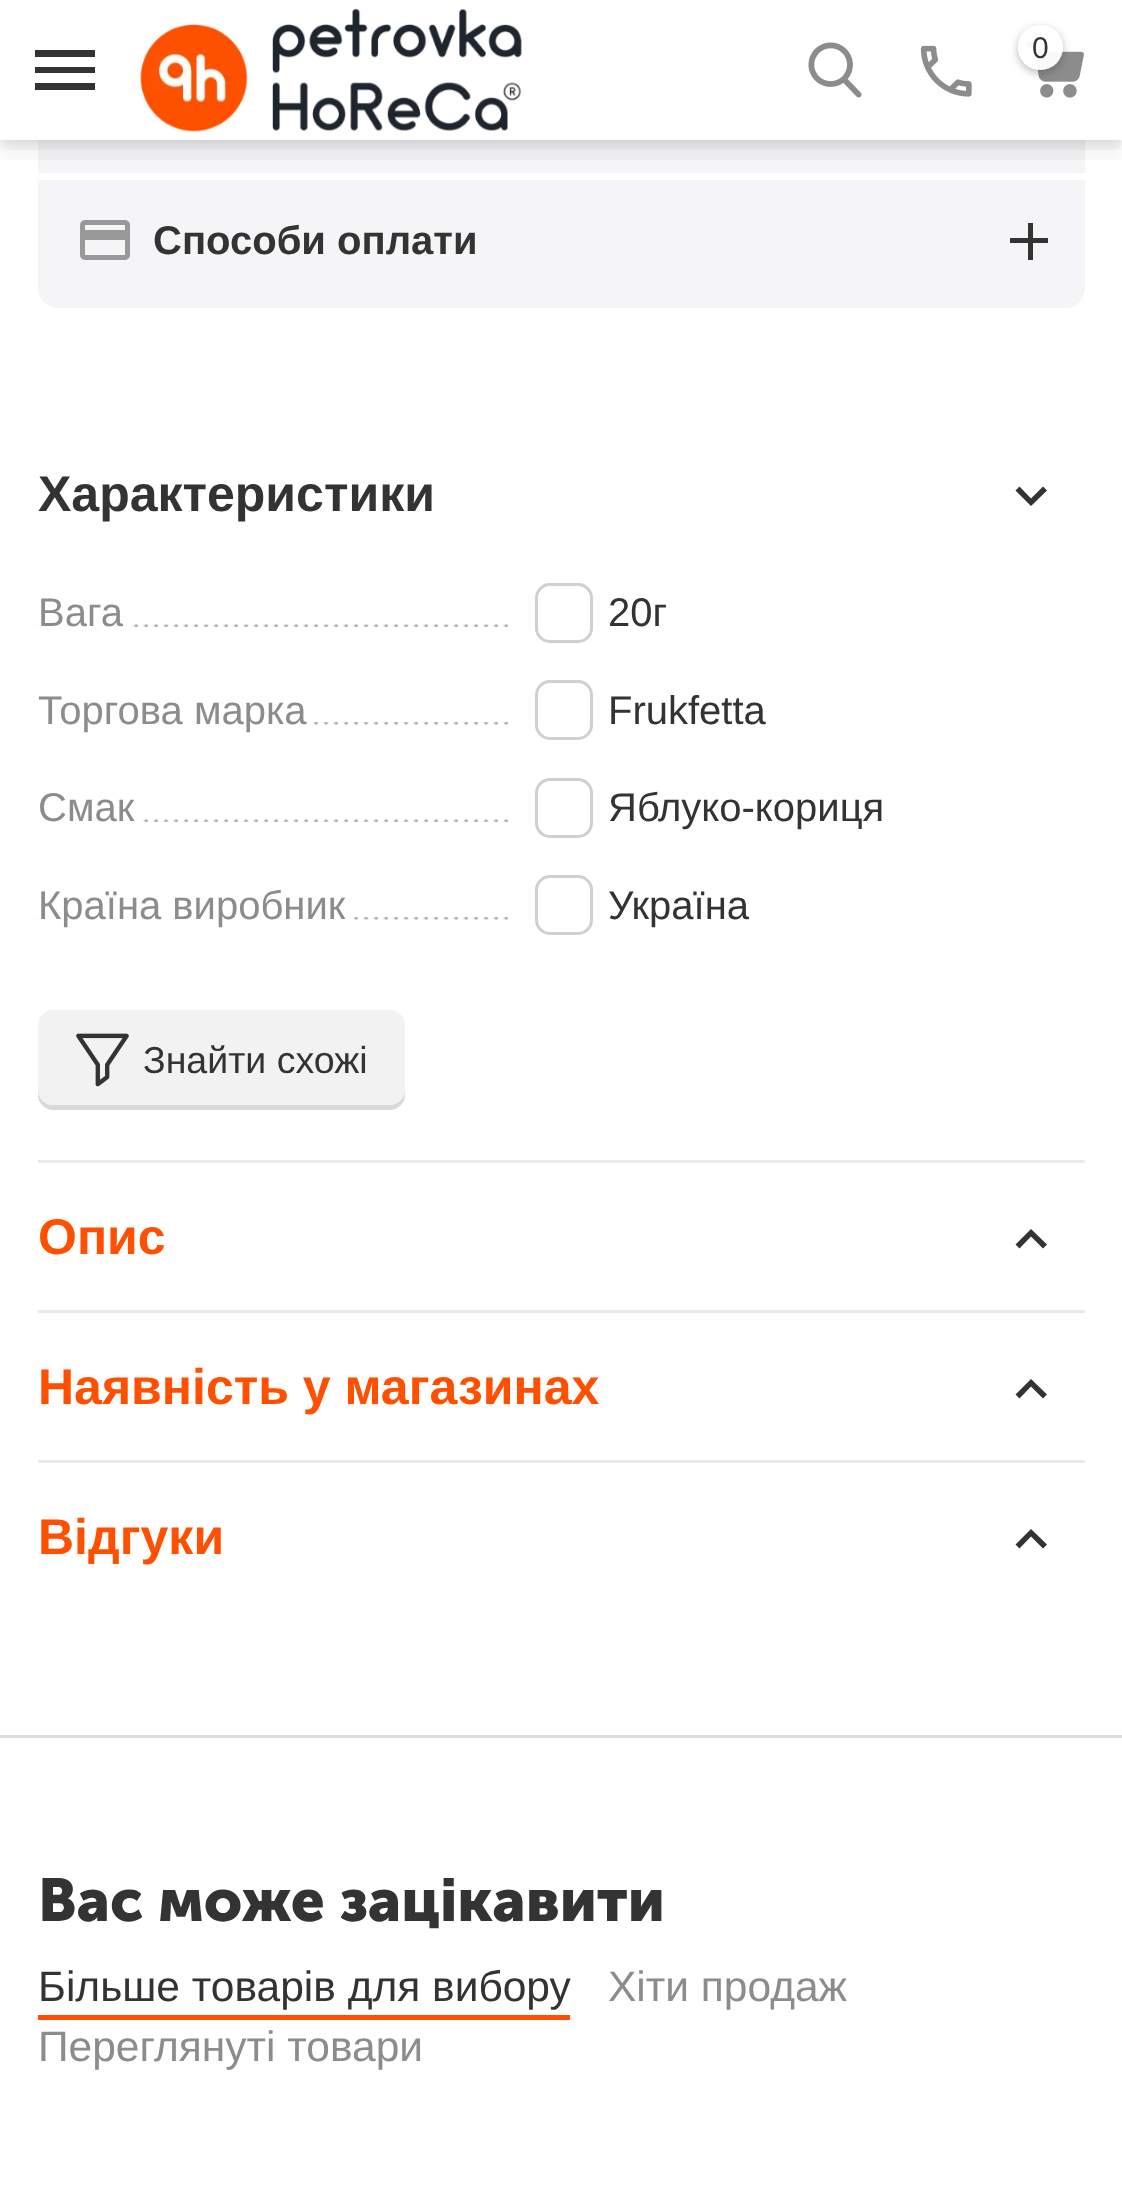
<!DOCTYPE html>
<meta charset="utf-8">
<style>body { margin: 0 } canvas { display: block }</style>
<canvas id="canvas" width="1122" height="2200"></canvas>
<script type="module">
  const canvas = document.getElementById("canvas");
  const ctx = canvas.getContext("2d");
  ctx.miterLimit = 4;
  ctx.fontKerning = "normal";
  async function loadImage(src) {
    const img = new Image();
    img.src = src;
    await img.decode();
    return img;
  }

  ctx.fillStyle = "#ffffff";
  ctx.fillRect(0, 0, 1122, 2200);
  ctx.fillStyle = "#f5f5f7";
  ctx.fillRect(38, 140, 1047, 33);
  ctx.beginPath();
  ctx.roundRect(38, 180, 1047, 128, [0, 0, 20, 20]);
  ctx.fill();
  ctx.save();
  ctx.beginPath();
  ctx.rect(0, 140, 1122, 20);
  ctx.clip();
  ctx.fillStyle = "rgba(0, 0, 0, 0.05)";
  ctx.filter = "blur(9px)";
  ctx.beginPath();
  ctx.rect(0, 18, 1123, 140);
  ctx.fill();
  ctx.filter = "none";
  ctx.restore();
  ctx.save();
  ctx.beginPath();
  ctx.rect(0, 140, 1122, 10);
  ctx.clip();
  ctx.fillStyle = "rgba(0, 0, 0, 0.1)";
  ctx.filter = "blur(6px)";
  ctx.beginPath();
  ctx.rect(0, 5, 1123, 140);
  ctx.fill();
  ctx.filter = "none";
  ctx.restore();
  ctx.fillStyle = "#333333";
  ctx.beginPath();
  ctx.moveTo(35, 90);
  ctx.lineTo(95, 90);
  ctx.lineTo(95, 83);
  ctx.lineTo(35, 83);
  ctx.closePath();
  ctx.moveTo(35, 73);
  ctx.lineTo(95, 73);
  ctx.lineTo(95, 67);
  ctx.lineTo(35, 67);
  ctx.closePath();
  ctx.moveTo(35, 50);
  ctx.lineTo(35, 57);
  ctx.lineTo(95, 57);
  ctx.lineTo(95, 50);
  ctx.closePath();
  ctx.fill();
  ctx.drawImage(await loadImage("img1.png"), 140, 8, 382, 124);
  ctx.drawImage(await loadImage("img2.png"), 808, 42, 54, 56);
  ctx.drawImage(await loadImage("img3.png"), 920, 45, 52, 52);
  ctx.drawImage(await loadImage("img4.png"), 1026, 42, 58, 56);
  ctx.save();
  ctx.beginPath();
  ctx.moveTo(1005, 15);
  ctx.lineTo(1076, 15);
  ctx.lineTo(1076, 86);
  ctx.lineTo(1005, 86);
  ctx.closePath();
  ctx.moveTo(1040.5, 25);
  ctx.bezierCurveTo(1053, 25, 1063, 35, 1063, 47.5);
  ctx.bezierCurveTo(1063, 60, 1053, 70, 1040.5, 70);
  ctx.bezierCurveTo(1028, 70, 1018, 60, 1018, 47.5);
  ctx.bezierCurveTo(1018, 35, 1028, 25, 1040.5, 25);
  ctx.closePath();
  ctx.clip("evenodd");
  ctx.fillStyle = "rgba(51, 51, 51, 0.35)";
  ctx.filter = "blur(4px)";
  ctx.beginPath();
  ctx.roundRect(1018, 28, 45, 45, 22.5);
  ctx.fill();
  ctx.filter = "none";
  ctx.restore();
  ctx.fillStyle = "rgba(255, 255, 255, 0.95)";
  ctx.beginPath();
  ctx.arc(1040.5, 47.5, 22.5, 0, Math.PI * 2);
  ctx.fill();
  ctx.font = "30px Liberation Sans";
  ctx.fillStyle = "#333333";
  ctx.fillText("0", 1032, 58);
  ctx.drawImage(await loadImage("img5.png"), 80, 220, 50, 40);
  ctx.font = "bold 40px Liberation Sans";
  ctx.fillText("Способи оплати", 153, 254);
  ctx.fillRect(1028, 223, 5, 37);
  ctx.fillRect(1010, 238, 38, 5);
  ctx.font = "bold 50px Liberation Sans";
  ctx.fillText("Характеристики", 38, 511);
  ctx.beginPath();
  ctx.moveTo(1043, 486.5);
  ctx.lineTo(1031, 498.5);
  ctx.lineTo(1019.5, 486.5);
  ctx.lineTo(1015.5, 490.5);
  ctx.lineTo(1031, 506);
  ctx.lineTo(1047, 490.5);
  ctx.closePath();
  ctx.fill();
  ctx.drawImage(await loadImage("img6.png"), 37, 624, 473, 3);
  ctx.fillStyle = "#ffffff";
  ctx.fillRect(38, 624, 91, 3);
  ctx.font = "40px Liberation Sans";
  ctx.fillStyle = "#8c8c8c";
  ctx.fillText("Вага", 38, 626);
  ctx.beginPath();
  ctx.roundRect(536.5, 584.5, 55, 57, 13.5);
  ctx.strokeStyle = "#cfcfd5";
  ctx.lineWidth = 3;
  ctx.stroke();
  ctx.fillStyle = "#333333";
  ctx.fillText("20г", 608, 626);
  ctx.drawImage(await loadImage("img7.png"), 37, 722, 473, 3);
  ctx.fillStyle = "#ffffff";
  ctx.fillRect(38, 722, 275, 3);
  ctx.fillStyle = "#8c8c8c";
  ctx.fillText("Торгова марка", 38, 724);
  ctx.beginPath();
  ctx.roundRect(536.5, 681.5, 55, 57, 13.5);
  ctx.stroke();
  ctx.fillStyle = "#333333";
  ctx.fillText("Frukfetta", 608, 724);
  ctx.drawImage(await loadImage("img6.png"), 37, 819, 473, 3);
  ctx.fillStyle = "#ffffff";
  ctx.fillRect(38, 819, 101, 3);
  ctx.fillStyle = "#8c8c8c";
  ctx.fillText("Смак", 38, 821);
  ctx.beginPath();
  ctx.roundRect(536.5, 779.5, 55, 57, 13.5);
  ctx.stroke();
  ctx.fillStyle = "#333333";
  ctx.fillText("Яблуко-кориця", 608, 821);
  ctx.drawImage(await loadImage("img7.png"), 37, 917, 473, 3);
  ctx.fillStyle = "#ffffff";
  ctx.fillRect(38, 917, 315, 3);
  ctx.fillStyle = "#8c8c8c";
  ctx.fillText("Країна виробник", 38, 919);
  ctx.beginPath();
  ctx.roundRect(536.5, 876.5, 55, 57, 13.5);
  ctx.stroke();
  ctx.fillStyle = "#333333";
  ctx.fillText("Україна", 608, 919);
  ctx.fillStyle = "#f2f2f2";
  ctx.beginPath();
  ctx.roundRect(38, 1010, 367, 100, 15);
  ctx.fill();
  ctx.fillStyle = "rgba(0, 0, 0, 0.1)";
  ctx.beginPath();
  ctx.moveTo(38, 1095);
  ctx.bezierCurveTo(38, 1103, 45, 1110, 53, 1110);
  ctx.lineTo(390, 1110);
  ctx.bezierCurveTo(398, 1110, 405, 1103, 405, 1095);
  ctx.lineTo(405, 1090);
  ctx.bezierCurveTo(405, 1098, 398, 1105, 390, 1105);
  ctx.lineTo(52, 1105);
  ctx.bezierCurveTo(44, 1105, 38, 1098, 38, 1090);
  ctx.closePath();
  ctx.fill();
  ctx.drawImage(await loadImage("img8.png"), 76, 1033, 53, 54);
  ctx.font = "37.5px Liberation Sans";
  ctx.fillStyle = "#333333";
  ctx.fillText("Знайти схожі", 143, 1073);
  ctx.fillStyle = "#eaeaed";
  ctx.fillRect(38, 1160, 1047, 3);
  ctx.font = "bold 50px Liberation Sans";
  ctx.fillStyle = "#fe5000";
  ctx.fillText("Опис", 38, 1254);
  ctx.fillStyle = "#333333";
  ctx.beginPath();
  ctx.moveTo(1031, 1229);
  ctx.lineTo(1015.5, 1244.5);
  ctx.lineTo(1019.5, 1248.5);
  ctx.lineTo(1031, 1236.5);
  ctx.lineTo(1043, 1248.5);
  ctx.lineTo(1047, 1244.5);
  ctx.closePath();
  ctx.fill();
  ctx.fillStyle = "#eaeaed";
  ctx.fillRect(38, 1310, 1047, 3);
  ctx.fillStyle = "#fe5000";
  ctx.fillText("Наявність у магазинах", 38, 1404);
  ctx.fillStyle = "#333333";
  ctx.beginPath();
  ctx.moveTo(1031, 1379);
  ctx.lineTo(1015.5, 1394.5);
  ctx.lineTo(1019.5, 1398.5);
  ctx.lineTo(1031, 1386.5);
  ctx.lineTo(1043, 1398.5);
  ctx.lineTo(1047, 1394.5);
  ctx.closePath();
  ctx.fill();
  ctx.fillStyle = "#eaeaed";
  ctx.fillRect(38, 1460, 1047, 3);
  ctx.fillStyle = "#fe5000";
  ctx.fillText("Відгуки", 38, 1554);
  ctx.fillStyle = "#333333";
  ctx.beginPath();
  ctx.moveTo(1031, 1529);
  ctx.lineTo(1015.5, 1544.5);
  ctx.lineTo(1019.5, 1548.5);
  ctx.lineTo(1031, 1536.5);
  ctx.lineTo(1043, 1548.5);
  ctx.lineTo(1047, 1544.5);
  ctx.closePath();
  ctx.fill();
  ctx.fillStyle = "#dcdce1";
  ctx.fillRect(0, 1735, 1122, 3);
  ctx.font = "bold 60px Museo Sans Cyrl";
  ctx.fillStyle = "#333333";
  ctx.fillText("Вас може зацікавити", 38, 1921);
  ctx.fillStyle = "#fe5000";
  ctx.fillRect(38, 2015, 532, 5);
  ctx.font = "42.5px Liberation Sans";
  ctx.fillStyle = "#333333";
  ctx.fillText("Більше товарів для вибору", 38, 2001);
  ctx.fillStyle = "#8c8c8c";
  ctx.fillText("Хіти продаж", 608, 2001);
  ctx.fillText("Переглянуті товари", 38, 2061);
</script>
